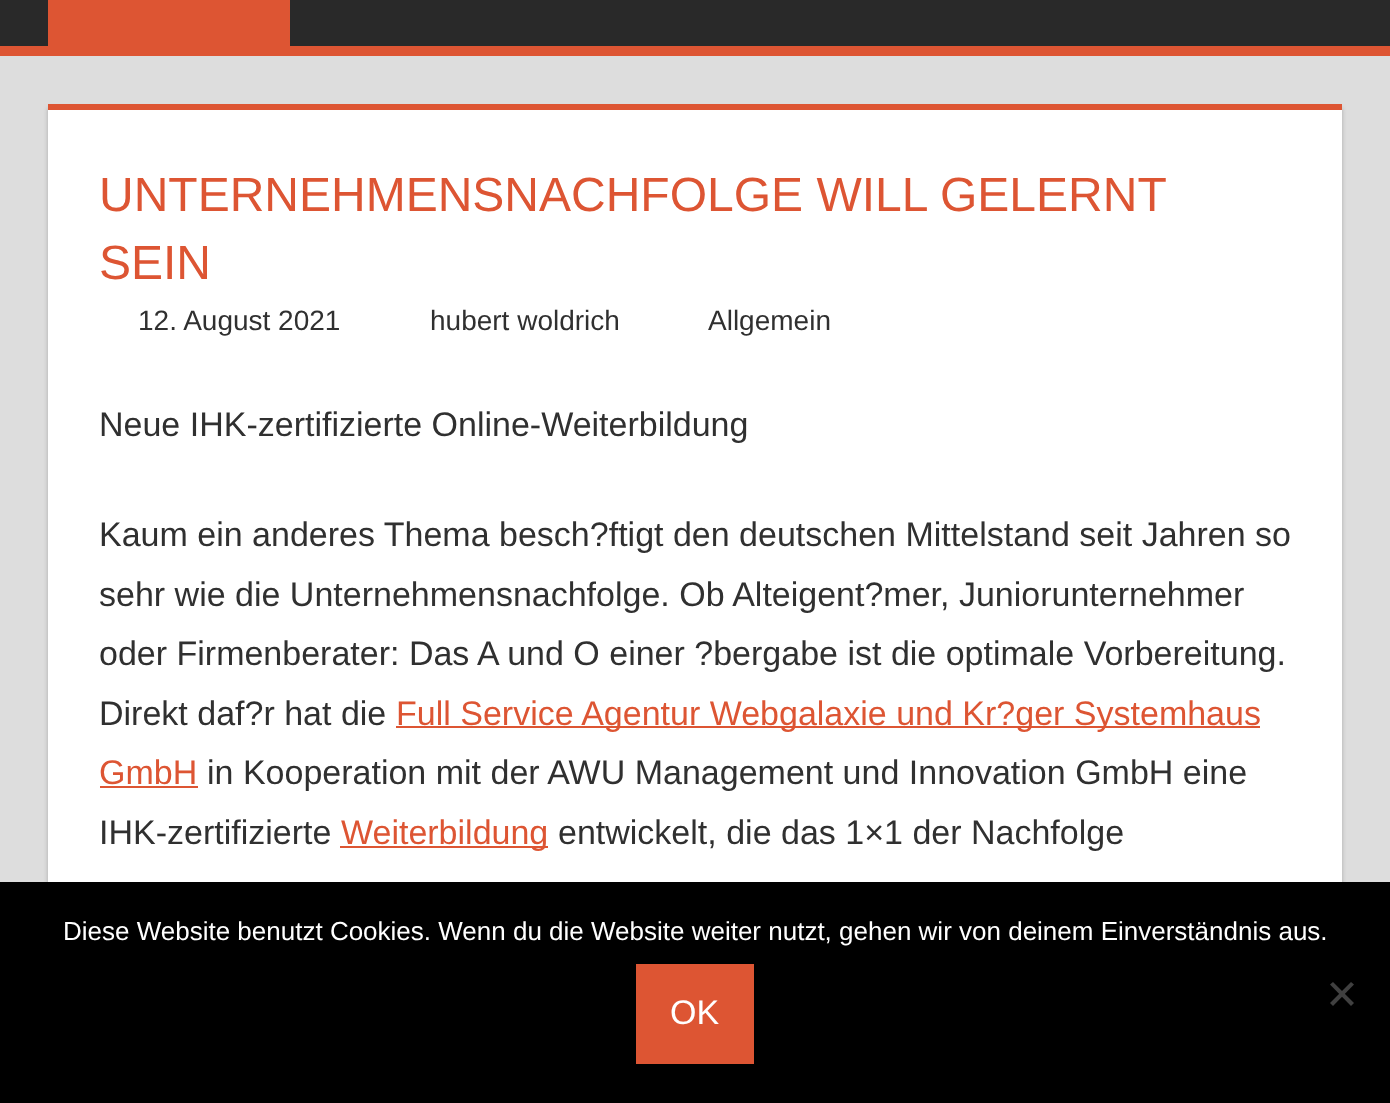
<!DOCTYPE html>
<meta charset="utf-8">
<style>body { margin: 0 } canvas { display: block }</style>
<canvas id="canvas" width="1390" height="1103"></canvas>
<script type="module">
  const canvas = document.getElementById("canvas");
  const ctx = canvas.getContext("2d");
  ctx.miterLimit = 4;
  ctx.fontKerning = "normal";

  ctx.fillStyle = "#dddddd";
  ctx.fillRect(0, 0, 1390, 1103);
  ctx.fillStyle = "#292929";
  ctx.fillRect(0, 0, 1390, 46);
  ctx.fillStyle = "#dd5533";
  ctx.fillRect(0, 46, 1390, 10);
  ctx.fillRect(48, 0, 242, 46);
  ctx.fillStyle = "#aaaaaa";
  ctx.filter = "blur(2px)";
  ctx.beginPath();
  ctx.rect(48, 108, 1294, 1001);
  ctx.fill();
  ctx.filter = "none";
  ctx.fillStyle = "#ffffff";
  ctx.fillRect(48, 110, 1294, 772);
  ctx.fillStyle = "#dd5533";
  ctx.fillRect(48, 104, 1294, 6);
  ctx.font = "48px Liberation Sans";
  ctx.fillText("UNTERNEHMENSNACHFOLGE WILL GELERNT", 99, 211);
  ctx.fillText("SEIN", 99, 279);
  ctx.font = "28px Liberation Sans";
  ctx.fillStyle = "#303030";
  ctx.fillText("12. August 2021", 138, 330);
  ctx.fillText("hubert woldrich", 430, 330);
  ctx.fillText("Allgemein", 708, 330);
  ctx.font = "34px Liberation Sans";
  ctx.fillText("Neue IHK-zertifizierte Online-Weiterbildung", 99, 436);
  ctx.fillText("Kaum ein anderes Thema besch?ftigt den deutschen Mittelstand seit Jahren so", 99, 546);
  ctx.fillText("sehr wie die Unternehmensnachfolge. Ob Alteigent?mer, Juniorunternehmer", 99, 606);
  ctx.fillText("oder Firmenberater: Das A und O einer ?bergabe ist die optimale Vorbereitung.", 99, 665);
  ctx.fillText("Direkt daf?r hat die", 99, 725);
  ctx.fillStyle = "#dd5533";
  ctx.fillRect(396, 726, 864, 2);
  ctx.fillText("Full Service Agentur Webgalaxie und Kr?ger Systemhaus", 396, 725);
  ctx.fillText("GmbH", 99, 784);
  ctx.fillRect(100, 786, 98, 2);
  ctx.fillStyle = "#303030";
  ctx.fillText("in Kooperation mit der AWU Management und Innovation GmbH eine", 207, 784);
  ctx.fillText("IHK-zertifizierte", 99, 844);
  ctx.fillStyle = "#dd5533";
  ctx.fillRect(340, 846, 208, 2);
  ctx.fillText("Weiterbildung", 341, 844);
  ctx.fillStyle = "#303030";
  ctx.fillText("entwickelt, die das 1×1 der Nachfolge", 558, 844);
  ctx.fillStyle = "#000000";
  ctx.fillRect(0, 882, 1390, 221);
  ctx.font = "26px Liberation Sans";
  ctx.fillStyle = "#ffffff";
  ctx.fillText("Diese Website benutzt Cookies. Wenn du die Website weiter nutzt, gehen wir von deinem Einverständnis aus.", 63, 940);
  ctx.fillStyle = "#404040";
  ctx.beginPath();
  ctx.moveTo(1351, 982);
  ctx.lineTo(1354, 984.5);
  ctx.lineTo(1333, 1006);
  ctx.lineTo(1330, 1003);
  ctx.closePath();
  ctx.fill();
  ctx.beginPath();
  ctx.moveTo(1330, 984.5);
  ctx.lineTo(1333, 982);
  ctx.lineTo(1354, 1003);
  ctx.lineTo(1351, 1006);
  ctx.closePath();
  ctx.fill();
  ctx.fillStyle = "#dd5533";
  ctx.fillRect(636, 964, 118, 100);
  ctx.font = "34px Liberation Sans";
  ctx.fillStyle = "#ffffff";
  ctx.fillText("OK", 670, 1024);
</script>
